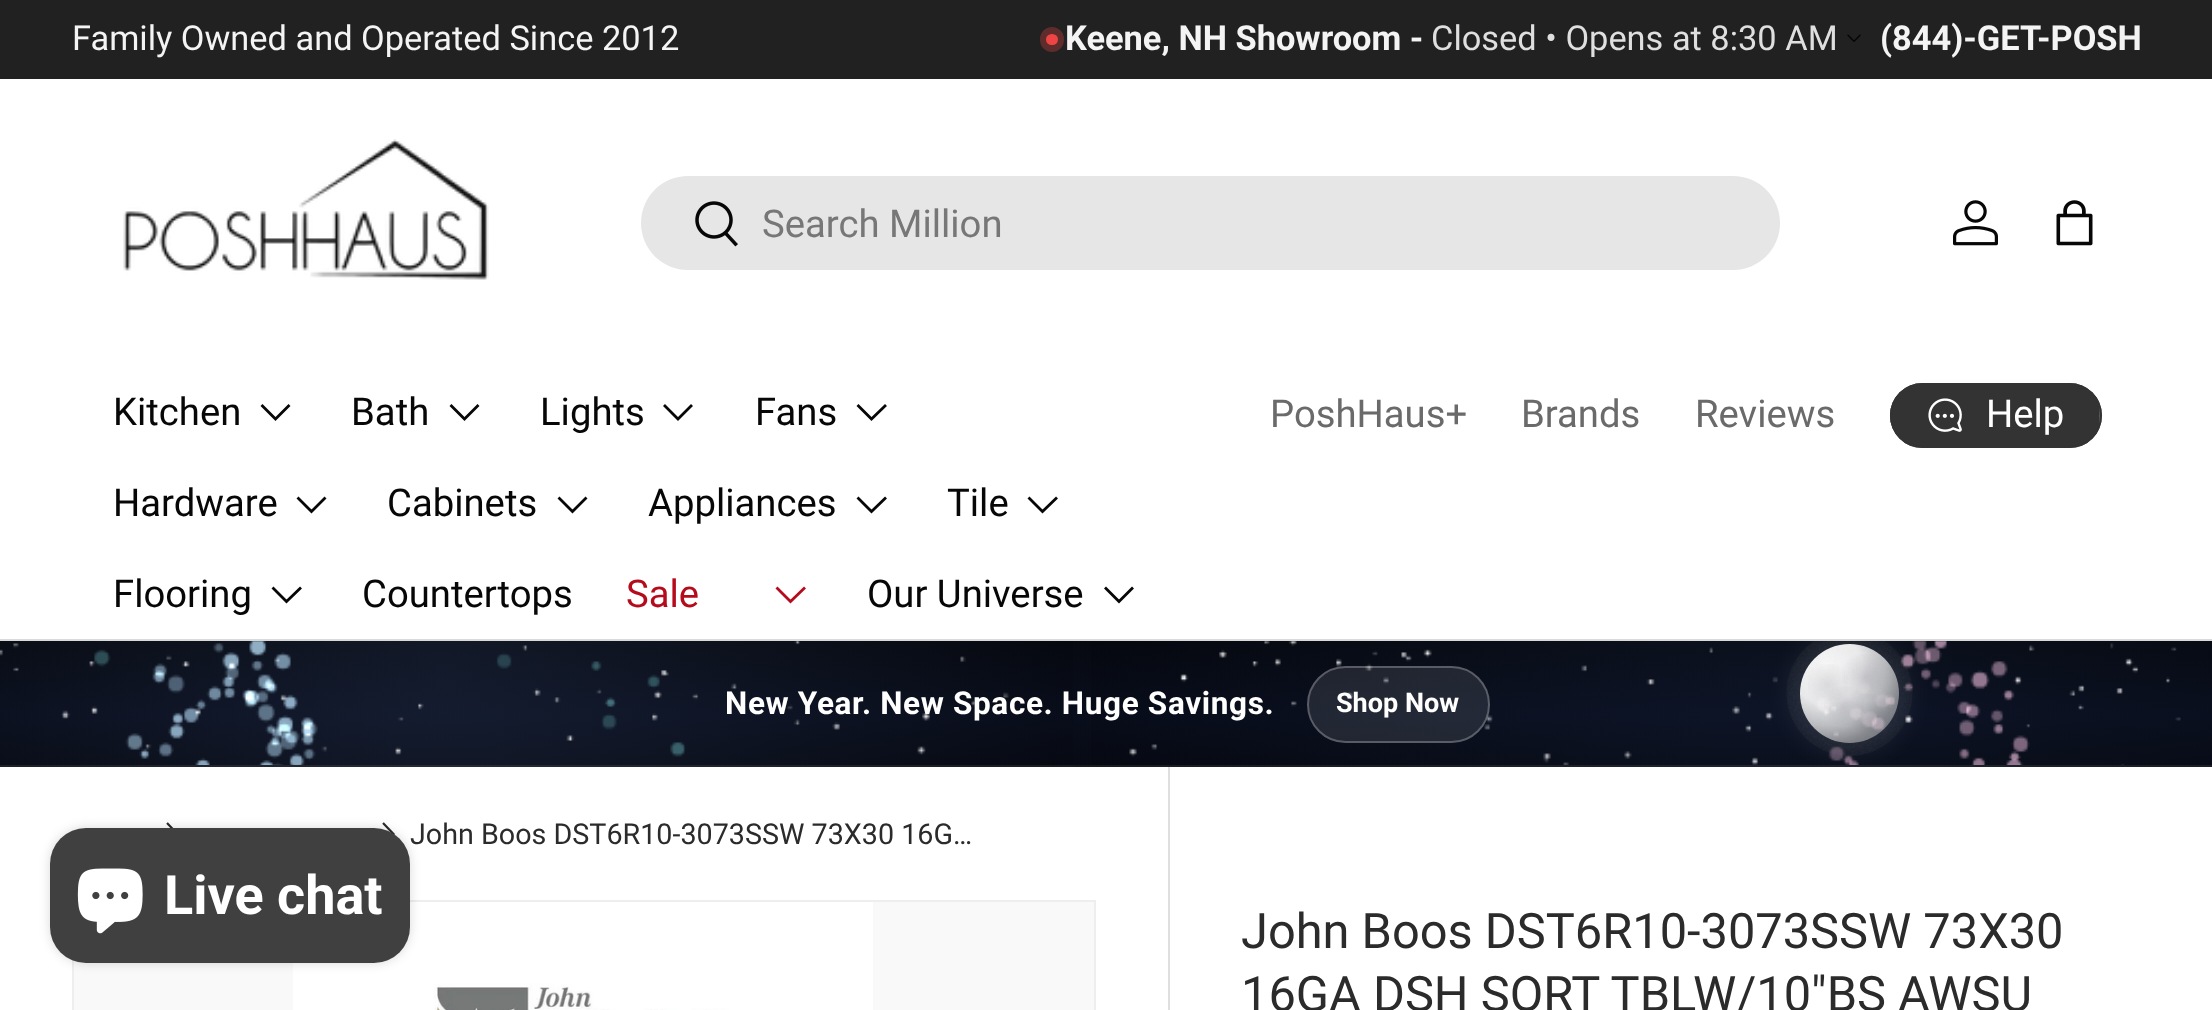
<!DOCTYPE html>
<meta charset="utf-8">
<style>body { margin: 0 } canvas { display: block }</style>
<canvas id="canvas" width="2212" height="1010"></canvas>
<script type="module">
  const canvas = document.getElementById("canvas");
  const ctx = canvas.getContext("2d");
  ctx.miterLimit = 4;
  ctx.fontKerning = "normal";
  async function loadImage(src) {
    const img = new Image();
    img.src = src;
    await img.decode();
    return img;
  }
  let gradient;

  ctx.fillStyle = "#ffffff";
  ctx.fillRect(0, 0, 2212, 1010);
  ctx.fillStyle = "#212121";
  ctx.fillRect(0, 0, 2212, 79);
  ctx.font = "34.4px Roboto";
  ctx.fillStyle = "#f4f4f4";
  ctx.fillText("Family Owned and Operated Since 2012", 72, 50);
  ctx.beginPath();
  ctx.roundRect(1043.5, 30.5, 17, 18, 8.5);
  ctx.strokeStyle = "#5f2c2c";
  ctx.lineWidth = 7;
  ctx.stroke();
  ctx.fillStyle = "#ef4444";
  ctx.beginPath();
  ctx.roundRect(1046, 34, 12, 11, 5.5);
  ctx.fill();
  ctx.font = "bold 34.4px Roboto";
  ctx.fillStyle = "#f4f4f4";
  ctx.fillText("Keene, NH Showroom -", 1065, 50);
  ctx.font = "34.4px Roboto";
  ctx.fillStyle = "#dfdfdf";
  ctx.fillText("Closed • Opens at 8:30 AM", 1431, 50);
  ctx.drawImage(await loadImage("img1.png"), 1847, 34, 14, 8);
  ctx.font = "bold 34.4px Roboto";
  ctx.fillStyle = "#f4f4f4";
  ctx.fillText("(844)-GET-POSH", 1880, 50);
  gradient = ctx.createLinearGradient(1107, 641, 1107, 765);
  gradient.addColorStop(0, "#04060c");
  gradient.addColorStop(0.6, "#070b18");
  gradient.addColorStop(1, "#05070f");
  ctx.fillStyle = gradient;
  ctx.fillRect(0, 641, 2212, 124);
  gradient = ctx.createRadialGradient(1771, 666, 0, 1771, 666, 1774);
  gradient.addColorStop(0, "rgba(40, 60, 100, 0.2)");
  gradient.addColorStop(0.45, "rgba(40, 60, 100, 0)");
  ctx.fillStyle = gradient;
  ctx.fillRect(1073, 641, 1139, 124);
  gradient = ctx.createRadialGradient(1771, 790, 0, 1771, 790, 1774);
  gradient.addColorStop(0, "#1f2430");
  gradient.addColorStop(0.45, "#181a1f");
  ctx.fillStyle = gradient;
  ctx.fillRect(0, 765, 2212, 2);
  gradient = ctx.createRadialGradient(443, 678, 0, 443, 678, 1773);
  gradient.addColorStop(0, "rgba(60, 80, 120, 0.25)");
  gradient.addColorStop(0.4, "rgba(60, 80, 120, 0)");
  ctx.fillStyle = gradient;
  ctx.fillRect(0, 641, 1091, 124);
  ctx.drawImage(await loadImage("img8.png"), 0, 641, 2181, 124);
  ctx.save();
  ctx.beginPath();
  ctx.rect(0, 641, 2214, 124);
  ctx.clip();
  ctx.beginPath();
  ctx.moveTo(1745, 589);
  ctx.lineTo(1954, 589);
  ctx.lineTo(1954, 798);
  ctx.lineTo(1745, 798);
  ctx.closePath();
  ctx.moveTo(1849.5, 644);
  ctx.bezierCurveTo(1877, 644, 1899, 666, 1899, 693.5);
  ctx.bezierCurveTo(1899, 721, 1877, 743, 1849.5, 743);
  ctx.bezierCurveTo(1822, 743, 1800, 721, 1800, 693.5);
  ctx.bezierCurveTo(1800, 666, 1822, 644, 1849.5, 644);
  ctx.closePath();
  ctx.clip("evenodd");
  ctx.fillStyle = "rgba(255, 255, 255, 0.16)";
  ctx.filter = "blur(18px)";
  ctx.beginPath();
  ctx.roundRect(1800, 644, 99, 99, 49.5);
  ctx.fill();
  ctx.filter = "none";
  ctx.restore();
  ctx.fillStyle = "#dadada";
  ctx.fillRect(0, 639, 2212, 2);
  ctx.drawImage(await loadImage("img2.png"), 123, 139, 366, 141);
  ctx.fillStyle = "#e6e6e6";
  ctx.beginPath();
  ctx.roundRect(641, 176, 1139, 94, 47);
  ctx.fill();
  ctx.drawImage(await loadImage("img3.png"), 695, 201, 43, 46);
  ctx.font = "38.25px Roboto";
  ctx.fillStyle = "#777777";
  ctx.fillText("Search Million", 762, 237);
  ctx.drawImage(await loadImage("img4.png"), 1953, 200, 45, 46);
  ctx.drawImage(await loadImage("img5.png"), 2056, 200, 37, 46);
  ctx.fillStyle = "#070707";
  ctx.fillText("Kitchen", 113, 425);
  ctx.beginPath();
  ctx.moveTo(289.5, 405);
  ctx.lineTo(275.5, 419);
  ctx.lineTo(261.5, 405);
  ctx.strokeStyle = "#070707";
  ctx.lineWidth = 2.8;
  ctx.stroke();
  ctx.fillText("Bath", 351, 425);
  ctx.beginPath();
  ctx.moveTo(478.5, 405);
  ctx.lineTo(464.5, 419);
  ctx.lineTo(450.5, 405);
  ctx.stroke();
  ctx.fillText("Lights", 540, 425);
  ctx.beginPath();
  ctx.moveTo(692, 405);
  ctx.lineTo(678, 419);
  ctx.lineTo(664, 405);
  ctx.stroke();
  ctx.fillText("Fans", 755, 425);
  ctx.beginPath();
  ctx.moveTo(886, 405);
  ctx.lineTo(871.5, 419);
  ctx.lineTo(857.5, 405);
  ctx.stroke();
  ctx.fillText("Hardware", 113, 516);
  ctx.beginPath();
  ctx.moveTo(325.5, 497.5);
  ctx.lineTo(311.5, 511.5);
  ctx.lineTo(297.5, 497.5);
  ctx.stroke();
  ctx.fillText("Cabinets", 387, 516);
  ctx.beginPath();
  ctx.moveTo(586.5, 497.5);
  ctx.lineTo(572.5, 511.5);
  ctx.lineTo(558.5, 497.5);
  ctx.stroke();
  ctx.fillText("Appliances", 648, 516);
  ctx.beginPath();
  ctx.moveTo(886, 497.5);
  ctx.lineTo(871.5, 511.5);
  ctx.lineTo(857.5, 497.5);
  ctx.stroke();
  ctx.fillText("Tile", 947, 516);
  ctx.beginPath();
  ctx.moveTo(1057, 497.5);
  ctx.lineTo(1042.5, 511.5);
  ctx.lineTo(1028.5, 497.5);
  ctx.stroke();
  ctx.fillText("Flooring", 113, 607);
  ctx.beginPath();
  ctx.moveTo(301, 587.5);
  ctx.lineTo(286.5, 601.5);
  ctx.lineTo(272.5, 587.5);
  ctx.stroke();
  ctx.fillText("Countertops", 362, 607);
  ctx.fillStyle = "#b40c1c";
  ctx.fillText("Sale", 626, 607);
  ctx.beginPath();
  ctx.moveTo(805, 587.5);
  ctx.lineTo(790.5, 601.5);
  ctx.lineTo(776.5, 587.5);
  ctx.strokeStyle = "#b40c1c";
  ctx.stroke();
  ctx.fillStyle = "#070707";
  ctx.fillText("Our Universe", 867, 607);
  ctx.beginPath();
  ctx.moveTo(1133, 587.5);
  ctx.lineTo(1119, 601.5);
  ctx.lineTo(1105, 587.5);
  ctx.strokeStyle = "#070707";
  ctx.stroke();
  ctx.fillStyle = "#6a6a6a";
  ctx.fillText("PoshHaus+", 1270, 427);
  ctx.fillText("Brands", 1521, 427);
  ctx.fillText("Reviews", 1695, 427);
  ctx.fillStyle = "#5a5a5a";
  ctx.beginPath();
  ctx.roundRect(1890, 383, 212, 65, 32.5);
  ctx.fill();
  ctx.save();
  ctx.beginPath();
  ctx.roundRect(1890, 383, 212, 65, 32.5);
  ctx.clip();
  gradient = ctx.createLinearGradient(1489, 340, 2088, 490);
  gradient.addColorStop(0.6, "#5a5a5a");
  gradient.addColorStop(0.6, "#333333");
  gradient.addColorStop(1, "#333333");
  ctx.fillStyle = gradient;
  ctx.fillRect(1890, 385, 209, 61);
  ctx.restore();
  ctx.beginPath();
  ctx.roundRect(1891, 384, 210, 63, 31.5);
  ctx.strokeStyle = "#333333";
  ctx.lineWidth = 2;
  ctx.stroke();
  ctx.drawImage(await loadImage("img6.png"), 1928, 398, 34, 34);
  ctx.fillStyle = "#ffffff";
  ctx.fillText("Help", 1986, 427);
  gradient = ctx.createRadialGradient(443, 802, 0, 443, 802, 1773);
  gradient.addColorStop(0, "rgba(76, 94, 131, 0.25)");
  gradient.addColorStop(0.4, "rgba(76, 94, 131, 0)");
  ctx.fillStyle = gradient;
  ctx.fillRect(0, 765, 1075, 2);
  gradient = ctx.createRadialGradient(1826, 667, 0, 1826, 667, 105);
  gradient.addColorStop(0, "rgba(255, 255, 255, 0.98)");
  gradient.addColorStop(0.34, "rgba(255, 255, 255, 0.92)");
  gradient.addColorStop(0.56, "rgba(237, 237, 237, 0.78)");
  gradient.addColorStop(0.74, "rgba(203, 203, 203, 0.62)");
  gradient.addColorStop(1, "rgba(164, 164, 164, 0.5)");
  ctx.fillStyle = gradient;
  ctx.beginPath();
  ctx.arc(1849.5, 693.5, 49.5, 0, Math.PI * 2);
  ctx.fill();
  gradient = ctx.createRadialGradient(1828, 684, 0, 1828, 684, 98);
  gradient.addColorStop(0, "rgba(74, 74, 90, 0.14)");
  gradient.addColorStop(0.24, "rgba(74, 74, 90, 0)");
  ctx.fillStyle = gradient;
  ctx.fillRect(1808, 664, 40, 40);
  gradient = ctx.createRadialGradient(1873, 715, 0, 1873, 715, 108);
  gradient.addColorStop(0, "rgba(86, 86, 102, 0.16)");
  gradient.addColorStop(0.23, "rgba(86, 86, 102, 0)");
  ctx.fillStyle = gradient;
  ctx.fillRect(1852, 694, 38, 38);
  gradient = ctx.createRadialGradient(1844, 706, 0, 1844, 706, 90);
  gradient.addColorStop(0, "rgba(91, 91, 107, 0.18)");
  gradient.addColorStop(0.25, "rgba(91, 91, 107, 0)");
  ctx.fillStyle = gradient;
  ctx.fillRect(1824, 686, 40, 39);
  gradient = ctx.createRadialGradient(1865, 677, 0, 1865, 677, 99);
  gradient.addColorStop(0, "rgba(86, 86, 102, 0.22)");
  gradient.addColorStop(0.26, "rgba(86, 86, 102, 0)");
  ctx.fillStyle = gradient;
  ctx.fillRect(1842, 654, 46, 46);
  ctx.drawImage(await loadImage("img7.png"), 1786, 641, 127, 115);
  ctx.letterSpacing = "0.65px";
  ctx.font = "bold 31.5px Roboto";
  ctx.fillStyle = "#ffffff";
  ctx.fillText("New Year. New Space. Huge Savings.", 725, 714);
  ctx.fillStyle = "rgba(255, 255, 255, 0.1)";
  ctx.beginPath();
  ctx.roundRect(1307, 666, 183, 77, 38.5);
  ctx.fill();
  ctx.beginPath();
  ctx.roundRect(1308, 667, 181, 75, 37.5);
  ctx.strokeStyle = "rgba(255, 255, 255, 0.25)";
  ctx.stroke();
  ctx.letterSpacing = "0px";
  ctx.font = "bold 27px Roboto";
  ctx.fillStyle = "#ffffff";
  ctx.fillText("Shop Now", 1336, 712);
  ctx.beginPath();
  ctx.moveTo(167, 823);
  ctx.lineTo(177.5, 834);
  ctx.lineTo(167, 844.5);
  ctx.strokeStyle = "#2a2b2a";
  ctx.lineWidth = 2.2;
  ctx.stroke();
  ctx.beginPath();
  ctx.moveTo(383, 823);
  ctx.lineTo(393.5, 834);
  ctx.lineTo(383, 844.5);
  ctx.stroke();
  ctx.strokeStyle = "#eeeeee";
  ctx.lineWidth = 2;
  ctx.strokeRect(73, 901, 1022, 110);
  ctx.fillStyle = "#f9f9f9";
  ctx.fillRect(74, 902, 1020, 108);
  ctx.drawImage(await loadImage("img10.png"), 293, 902, 580, 108);
  ctx.fillStyle = "rgba(0, 0, 0, 0.15)";
  ctx.filter = "blur(5.5px)";
  ctx.beginPath();
  ctx.roundRect(50, 828, 360, 135, 36);
  ctx.fill();
  ctx.filter = "none";
  ctx.fillStyle = "#404040";
  ctx.beginPath();
  ctx.roundRect(50, 828, 360, 135, 36);
  ctx.fill();
  ctx.drawImage(await loadImage("img9.png"), 77, 868, 66, 66);
  ctx.font = "bold 54px Roboto";
  ctx.fillStyle = "#ffffff";
  ctx.fillText("Live chat", 164, 914);
  ctx.font = "28.7px Roboto";
  ctx.fillStyle = "#2a2b2a";
  ctx.fillText("John Boos DST6R10-3073SSW 73X30 16G…", 410, 844);
  ctx.fillStyle = "#dfdfdf";
  ctx.fillRect(1168, 767, 2, 243);
  ctx.font = "48.75px Roboto";
  ctx.fillStyle = "#2a2b2a";
  ctx.fillText("John Boos DST6R10-3073SSW 73X30", 1241, 948);
  ctx.fillText("16GA DSH SORT TBLW/10\"BS AWSU", 1241, 1011);
</script>
